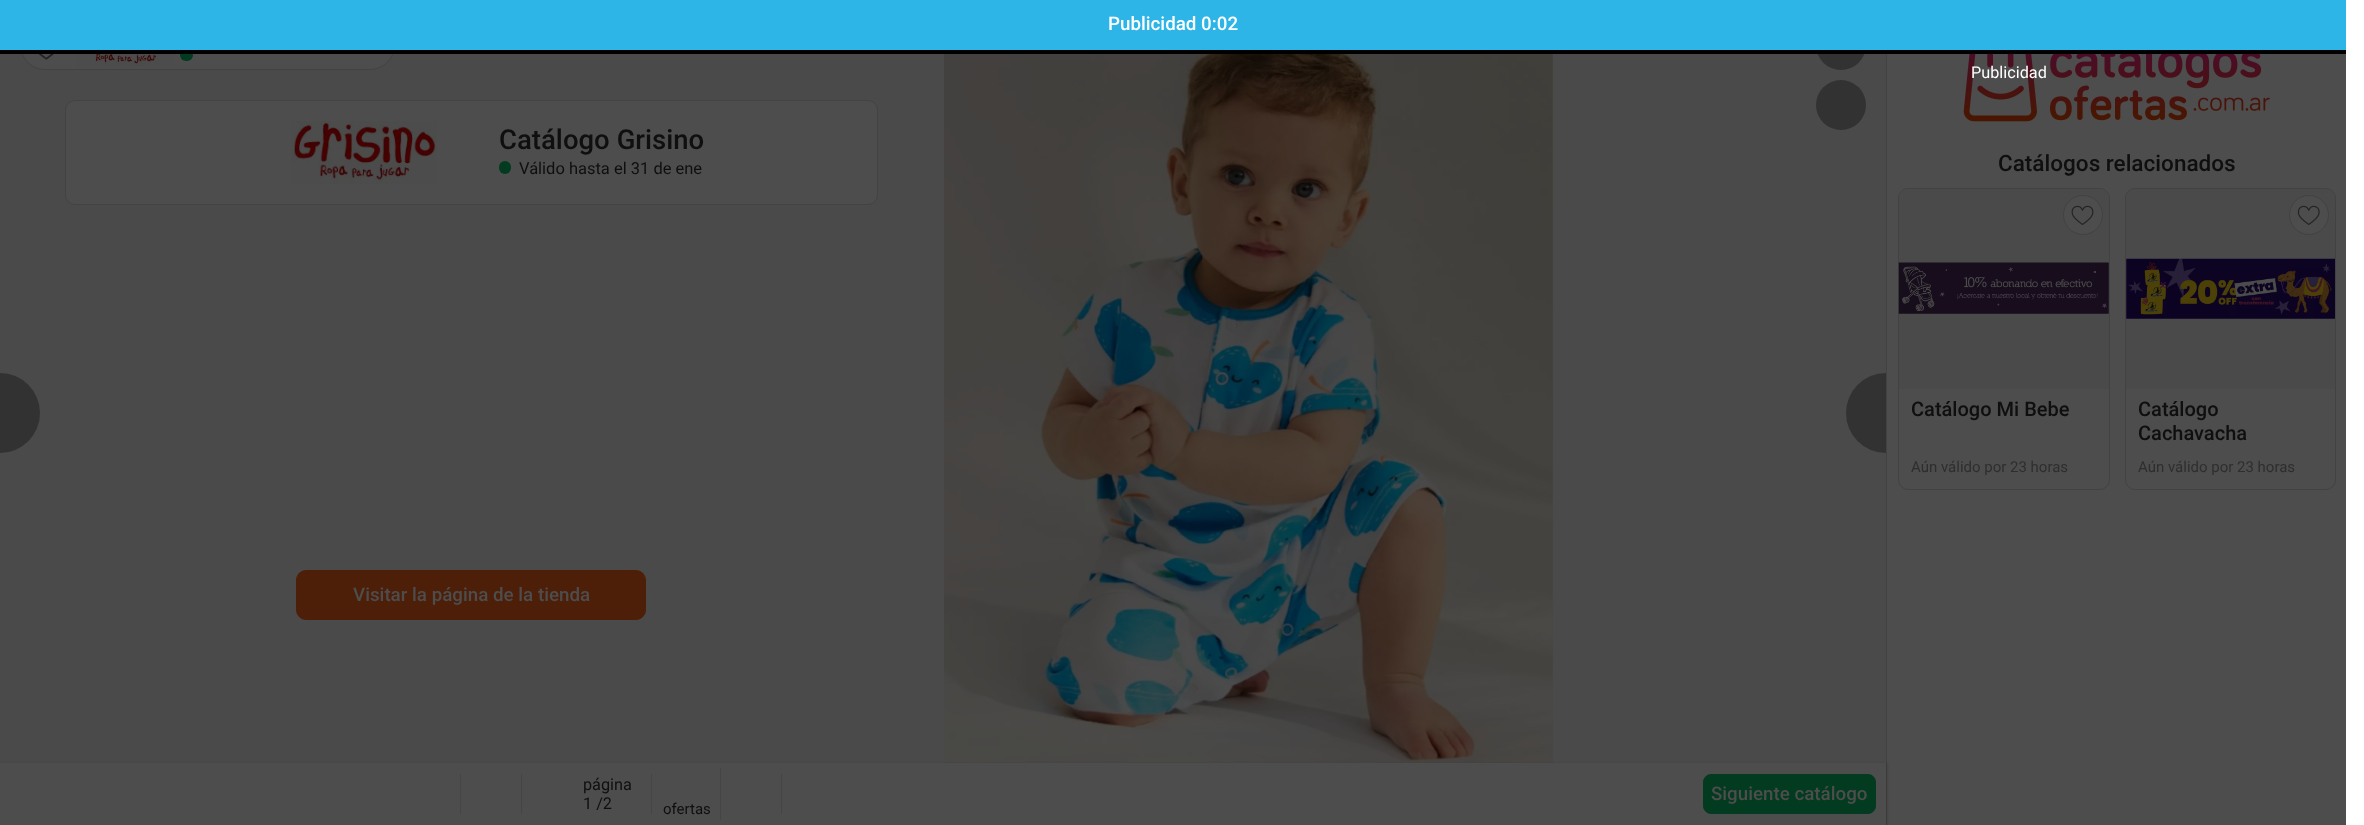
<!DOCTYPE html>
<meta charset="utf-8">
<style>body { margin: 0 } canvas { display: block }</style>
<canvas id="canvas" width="2364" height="825"></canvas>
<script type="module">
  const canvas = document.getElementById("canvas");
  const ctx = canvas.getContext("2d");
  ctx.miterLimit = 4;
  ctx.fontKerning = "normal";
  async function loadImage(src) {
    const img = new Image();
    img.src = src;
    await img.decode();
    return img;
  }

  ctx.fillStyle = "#ffffff";
  ctx.fillRect(0, 0, 2364, 825);
  ctx.fillStyle = "#4a4a4a";
  ctx.fillRect(0, 54, 1886, 709);
  ctx.fillStyle = "#4d4d4d";
  ctx.beginPath();
  ctx.roundRect(20.5, 20.5, 374, 49, 24.5);
  ctx.fill();
  ctx.strokeStyle = "#424242";
  ctx.stroke();
  ctx.drawImage(await loadImage("img1.png"), 38, 54, 16, 6);
  ctx.drawImage(await loadImage("img2.png"), 76, 54, 99, 13);
  ctx.fillStyle = "#023b20";
  ctx.beginPath();
  ctx.roundRect(180, 49, 13, 12, 6);
  ctx.fill();
  ctx.fillStyle = "#323232";
  ctx.beginPath();
  ctx.arc(1841, 45, 25, 0, Math.PI * 2);
  ctx.fill();
  ctx.fillStyle = "#2cb5e6";
  ctx.fillRect(0, 0, 2346, 50);
  ctx.font = "500 18.75px Roboto";
  ctx.fillStyle = "#ffffff";
  ctx.fillText("Publicidad 0:02", 1108, 30);
  ctx.fillStyle = "#4d4d4d";
  ctx.fillRect(1887, 54, 459, 771);
  ctx.drawImage(await loadImage("img6.png"), 1963, 54, 307, 68);
  ctx.font = "16.25px Roboto";
  ctx.fillStyle = "#ffffff";
  ctx.fillText("Publicidad", 1971, 78);
  ctx.fillStyle = "#000000";
  ctx.fillRect(0, 50, 2346, 4);
  ctx.fillStyle = "#323232";
  ctx.beginPath();
  ctx.arc(1841, 105, 25, 0, Math.PI * 2);
  ctx.fill();
  ctx.fillStyle = "rgba(15, 15, 15, 0.4)";
  ctx.beginPath();
  ctx.roundRect(0, 373, 40, 80, [0, 40, 40, 0]);
  ctx.fill();
  ctx.fillStyle = "#4d4d4d";
  ctx.beginPath();
  ctx.roundRect(65, 100, 813, 105, 10);
  ctx.fill();
  ctx.beginPath();
  ctx.roundRect(65.5, 100.5, 812, 104, 9.5);
  ctx.strokeStyle = "rgba(0, 0, 0, 0.12)";
  ctx.stroke();
  ctx.drawImage(await loadImage("img3.png"), 291, 121, 146, 63);
  ctx.font = "500 27.5px Roboto";
  ctx.fillStyle = "#0f0f0f";
  ctx.fillText("Catálogo Grisino", 499, 149);
  ctx.fillStyle = "#023b20";
  ctx.beginPath();
  ctx.roundRect(499, 161, 12, 13, 6);
  ctx.fill();
  ctx.font = "16.5px Roboto";
  ctx.fillStyle = "#0f0f0f";
  ctx.fillText("Válido hasta el 31 de ene", 519, 174);
  ctx.fillStyle = "#4d1f09";
  ctx.beginPath();
  ctx.roundRect(296.5, 570.5, 349, 49, 9.5);
  ctx.fill();
  ctx.strokeStyle = "#4d1f09";
  ctx.stroke();
  ctx.font = "500 18.75px Roboto";
  ctx.fillStyle = "#4d4d4d";
  ctx.fillText("Visitar la página de la tienda", 353, 601);
  ctx.drawImage(await loadImage("img4.png"), 944, 54, 609, 709);
  ctx.drawImage(await loadImage("img5.png"), 944, 54, 609, 709);
  ctx.fillStyle = "rgba(15, 15, 15, 0.4)";
  ctx.beginPath();
  ctx.roundRect(1846, 373, 40, 80, [40, 0, 0, 40]);
  ctx.fill();
  ctx.fillStyle = "#424242";
  ctx.fillRect(1886, 54, 1, 771);
  ctx.fillStyle = "rgba(0, 0, 0, 0.1)";
  ctx.filter = "blur(1px)";
  ctx.beginPath();
  ctx.rect(1, 763, 1887, 62);
  ctx.fill();
  ctx.filter = "none";
  ctx.fillStyle = "#4d4d4d";
  ctx.fillRect(0, 763, 1886, 62);
  ctx.fillStyle = "#454545";
  ctx.fillRect(460, 774, 1, 40);
  ctx.fillRect(521, 774, 1, 40);
  ctx.fillRect(651, 774, 1, 40);
  ctx.font = "16.25px Roboto";
  ctx.fillStyle = "#0f0f0f";
  ctx.fillText("página", 583, 790);
  ctx.fillText("1 /2", 583, 809);
  ctx.fillStyle = "#454545";
  ctx.fillRect(781, 774, 1, 40);
  ctx.fillStyle = "#023b20";
  ctx.beginPath();
  ctx.roundRect(1703.5, 774.5, 172, 39, 7.5);
  ctx.fill();
  ctx.strokeStyle = "#023b20";
  ctx.stroke();
  ctx.font = "500 18.75px Roboto";
  ctx.fillStyle = "#4d4d4d";
  ctx.fillText("Siguiente catálogo", 1711, 800);
  ctx.fillStyle = "#454545";
  ctx.fillRect(720, 768, 1, 52);
  ctx.font = "15px Roboto";
  ctx.fillStyle = "#0f0f0f";
  ctx.fillText("ofertas", 663, 814);
  ctx.font = "500 22.5px Roboto";
  ctx.fillText("Catálogos relacionados", 1998, 171);
  ctx.beginPath();
  ctx.roundRect(1898.5, 188.5, 211, 301, 9.5);
  ctx.strokeStyle = "#424242";
  ctx.stroke();
  ctx.fillStyle = "#4a4a4a";
  ctx.beginPath();
  ctx.roundRect(1899, 189, 210, 200, [10, 10, 0, 0]);
  ctx.fill();
  ctx.drawImage(await loadImage("img7.png"), 1898, 262, 211, 52);
  ctx.fillStyle = "#4d4d4d";
  ctx.beginPath();
  ctx.arc(2083, 215, 19.5, 0, Math.PI * 2);
  ctx.fill();
  ctx.stroke();
  ctx.drawImage(await loadImage("img8.png"), 2071, 205, 23, 20);
  ctx.font = "500 20px Roboto";
  ctx.fillStyle = "#0f0f0f";
  ctx.fillText("Catálogo Mi Bebe", 1911, 416);
  ctx.font = "15px Roboto";
  ctx.fillStyle = "#2e2e2e";
  ctx.fillText("Aún válido por 23 horas", 1911, 472);
  ctx.beginPath();
  ctx.roundRect(2125.5, 188.5, 210, 301, 9.5);
  ctx.stroke();
  ctx.fillStyle = "#4a4a4a";
  ctx.beginPath();
  ctx.roundRect(2126, 189, 209, 200, [10, 10, 0, 0]);
  ctx.fill();
  ctx.drawImage(await loadImage("img9.png"), 2126, 258, 209, 61);
  ctx.fillStyle = "#4d4d4d";
  ctx.beginPath();
  ctx.arc(2309, 215, 19.5, 0, Math.PI * 2);
  ctx.fill();
  ctx.stroke();
  ctx.drawImage(await loadImage("img10.png"), 2297, 205, 23, 20);
  ctx.font = "500 20px Roboto";
  ctx.fillStyle = "#0f0f0f";
  ctx.fillText("Catálogo", 2138, 416);
  ctx.fillText("Cachavacha", 2138, 440);
  ctx.font = "15px Roboto";
  ctx.fillStyle = "#2e2e2e";
  ctx.fillText("Aún válido por 23 horas", 2138, 472);
</script>
